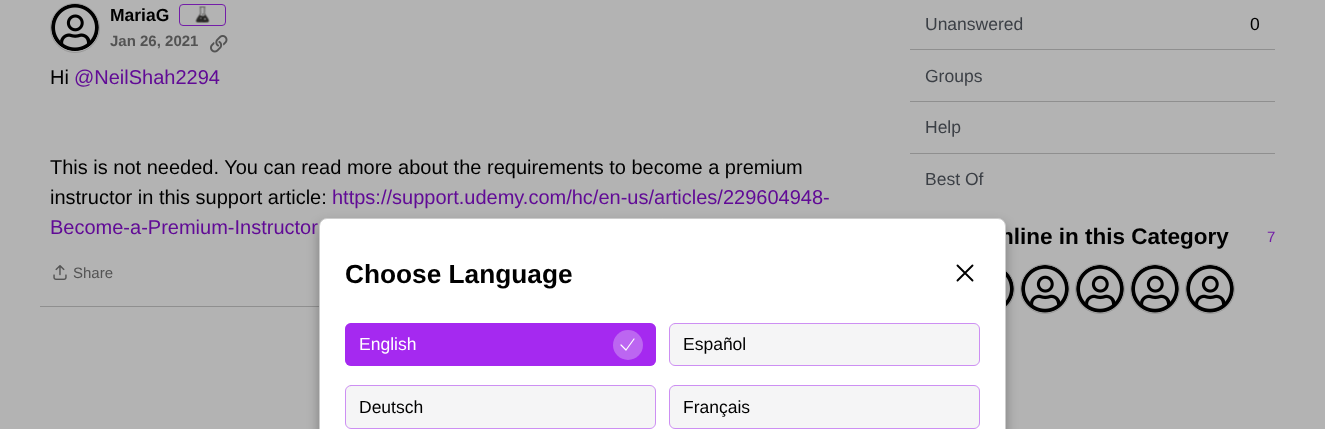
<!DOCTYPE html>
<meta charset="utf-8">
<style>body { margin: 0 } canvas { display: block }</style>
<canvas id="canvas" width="1325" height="429"></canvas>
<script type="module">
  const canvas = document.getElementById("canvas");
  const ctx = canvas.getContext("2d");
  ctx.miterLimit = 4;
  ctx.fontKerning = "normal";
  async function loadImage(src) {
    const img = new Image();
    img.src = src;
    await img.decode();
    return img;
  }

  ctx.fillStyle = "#b3b3b3";
  ctx.fillRect(0, 0, 1325, 429);
  ctx.beginPath();
  ctx.arc(75, 28, 24.5, 0, Math.PI * 2);
  ctx.strokeStyle = "#989898";
  ctx.stroke();
  ctx.drawImage(await loadImage("img1.png"), 51, 4, 48, 47);
  ctx.font = "bold 17.5px Liberation Sans";
  ctx.fillStyle = "#000000";
  ctx.fillText("MariaG", 110, 21);
  ctx.beginPath();
  ctx.roundRect(179.5, 4.5, 46, 21, 3.5);
  ctx.strokeStyle = "#731da8";
  ctx.stroke();
  ctx.drawImage(await loadImage("img2.png"), 195, 6, 15, 18);
  ctx.font = "bold 15px Liberation Sans";
  ctx.fillStyle = "#535353";
  ctx.fillText("Jan 26, 2021", 110, 46);
  ctx.drawImage(await loadImage("img3.png"), 210, 35, 18, 18);
  ctx.font = "20px Liberation Sans";
  ctx.fillStyle = "#000000";
  ctx.fillText("Hi", 50, 84);
  ctx.fillStyle = "#610b96";
  ctx.fillText("@NeilShah2294", 74, 84);
  ctx.fillStyle = "#000000";
  ctx.fillText("This is not needed. You can read more about the requirements to become a premium", 50, 174);
  ctx.fillText("instructor in this support article:", 50, 204);
  ctx.fillStyle = "#610b96";
  ctx.fillText("https://support.udemy.com/hc/en-us/articles/229604948-", 332, 204);
  ctx.fillText("Become-a-Premium-Instructor", 50, 234);
  ctx.drawImage(await loadImage("img4.png"), 53, 265, 14, 15);
  ctx.font = "15px Liberation Sans";
  ctx.fillStyle = "#535353";
  ctx.fillText("Share", 73, 278);
  ctx.fillStyle = "#8f8f8f";
  ctx.fillRect(40, 306, 279, 1);
  ctx.fillRect(910, 49, 365, 1);
  ctx.font = "17.5px Liberation Sans";
  ctx.fillStyle = "#3b3f45";
  ctx.fillText("Unanswered", 925, 30);
  ctx.fillStyle = "#000000";
  ctx.fillText("0", 1250, 30);
  ctx.fillStyle = "#8f8f8f";
  ctx.fillRect(910, 101, 365, 1);
  ctx.fillStyle = "#3b3f45";
  ctx.fillText("Groups", 925, 82);
  ctx.fillStyle = "#8f8f8f";
  ctx.fillRect(910, 153, 365, 1);
  ctx.fillStyle = "#3b3f45";
  ctx.fillText("Help", 925, 133);
  ctx.fillText("Best Of", 925, 185);
  ctx.font = "bold 22.5px Liberation Sans";
  ctx.fillStyle = "#000000";
  ctx.fillText("nline in this Category", 1000, 244);
  ctx.font = "15px Liberation Sans";
  ctx.fillStyle = "#731da8";
  ctx.fillText("7", 1267, 242);
  ctx.beginPath();
  ctx.arc(990, 289, 24.5, 0, Math.PI * 2);
  ctx.strokeStyle = "#989898";
  ctx.stroke();
  ctx.drawImage(await loadImage("img5.png"), 1006, 271, 8, 36);
  ctx.beginPath();
  ctx.arc(1045, 289, 24.5, 0, Math.PI * 2);
  ctx.stroke();
  ctx.drawImage(await loadImage("img6.png"), 1021, 265, 48, 48);
  ctx.beginPath();
  ctx.arc(1100, 289, 24.5, 0, Math.PI * 2);
  ctx.stroke();
  ctx.drawImage(await loadImage("img6.png"), 1076, 265, 48, 48);
  ctx.beginPath();
  ctx.arc(1155, 289, 24.5, 0, Math.PI * 2);
  ctx.stroke();
  ctx.drawImage(await loadImage("img6.png"), 1131, 265, 48, 48);
  ctx.beginPath();
  ctx.arc(1210, 289, 24.5, 0, Math.PI * 2);
  ctx.stroke();
  ctx.drawImage(await loadImage("img6.png"), 1186, 265, 48, 48);
  ctx.fillStyle = "rgba(0, 0, 0, 0.3)";
  ctx.filter = "blur(6px)";
  ctx.beginPath();
  ctx.roundRect(319, 224, 687, 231, 8);
  ctx.fill();
  ctx.filter = "none";
  ctx.fillStyle = "#ffffff";
  ctx.beginPath();
  ctx.roundRect(319.5, 218.5, 686, 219, 7.5);
  ctx.fill();
  ctx.strokeStyle = "#cccccc";
  ctx.stroke();
  ctx.font = "bold 26.25px Liberation Sans";
  ctx.fillStyle = "#000000";
  ctx.fillText("Choose Language", 345, 283);
  ctx.beginPath();
  ctx.moveTo(957.5, 280.5);
  ctx.lineTo(972.5, 265.5);
  ctx.moveTo(957.5, 265.5);
  ctx.lineTo(972.5, 280.5);
  ctx.strokeStyle = "#000000";
  ctx.lineWidth = 1.9;
  ctx.lineCap = "round";
  ctx.lineJoin = "round";
  ctx.stroke();
  ctx.fillStyle = "#a529f0";
  ctx.beginPath();
  ctx.roundRect(345, 323, 311, 43, 6);
  ctx.fill();
  ctx.beginPath();
  ctx.roundRect(345.5, 323.5, 310, 42, 5.5);
  ctx.strokeStyle = "rgba(165, 41, 240, 0.5)";
  ctx.lineWidth = 1;
  ctx.lineJoin = "miter";
  ctx.stroke();
  ctx.font = "17.5px Liberation Sans";
  ctx.fillStyle = "#ffffff";
  ctx.fillText("English", 359, 350);
  ctx.fillStyle = "#bc66f1";
  ctx.beginPath();
  ctx.arc(628, 345, 15, 0, Math.PI * 2);
  ctx.fill();
  ctx.beginPath();
  ctx.moveTo(621, 345);
  ctx.lineTo(626, 350);
  ctx.lineTo(634, 339);
  ctx.strokeStyle = "#ffffff";
  ctx.lineWidth = 1.2;
  ctx.lineJoin = "round";
  ctx.stroke();
  ctx.fillStyle = "#f5f5f6";
  ctx.beginPath();
  ctx.roundRect(669.5, 323.5, 310, 42, 5.5);
  ctx.fill();
  ctx.strokeStyle = "#cd8ff3";
  ctx.lineWidth = 1;
  ctx.lineJoin = "miter";
  ctx.stroke();
  ctx.fillStyle = "#000000";
  ctx.fillText("Español", 683, 350);
  ctx.fillStyle = "#f5f5f6";
  ctx.beginPath();
  ctx.roundRect(345.5, 385.5, 310, 43, 5.5);
  ctx.fill();
  ctx.stroke();
  ctx.fillStyle = "#000000";
  ctx.fillText("Deutsch", 359, 413);
  ctx.fillStyle = "#f5f5f6";
  ctx.beginPath();
  ctx.roundRect(669.5, 385.5, 310, 43, 5.5);
  ctx.fill();
  ctx.stroke();
  ctx.fillStyle = "#000000";
  ctx.fillText("Français", 683, 413);
</script>
